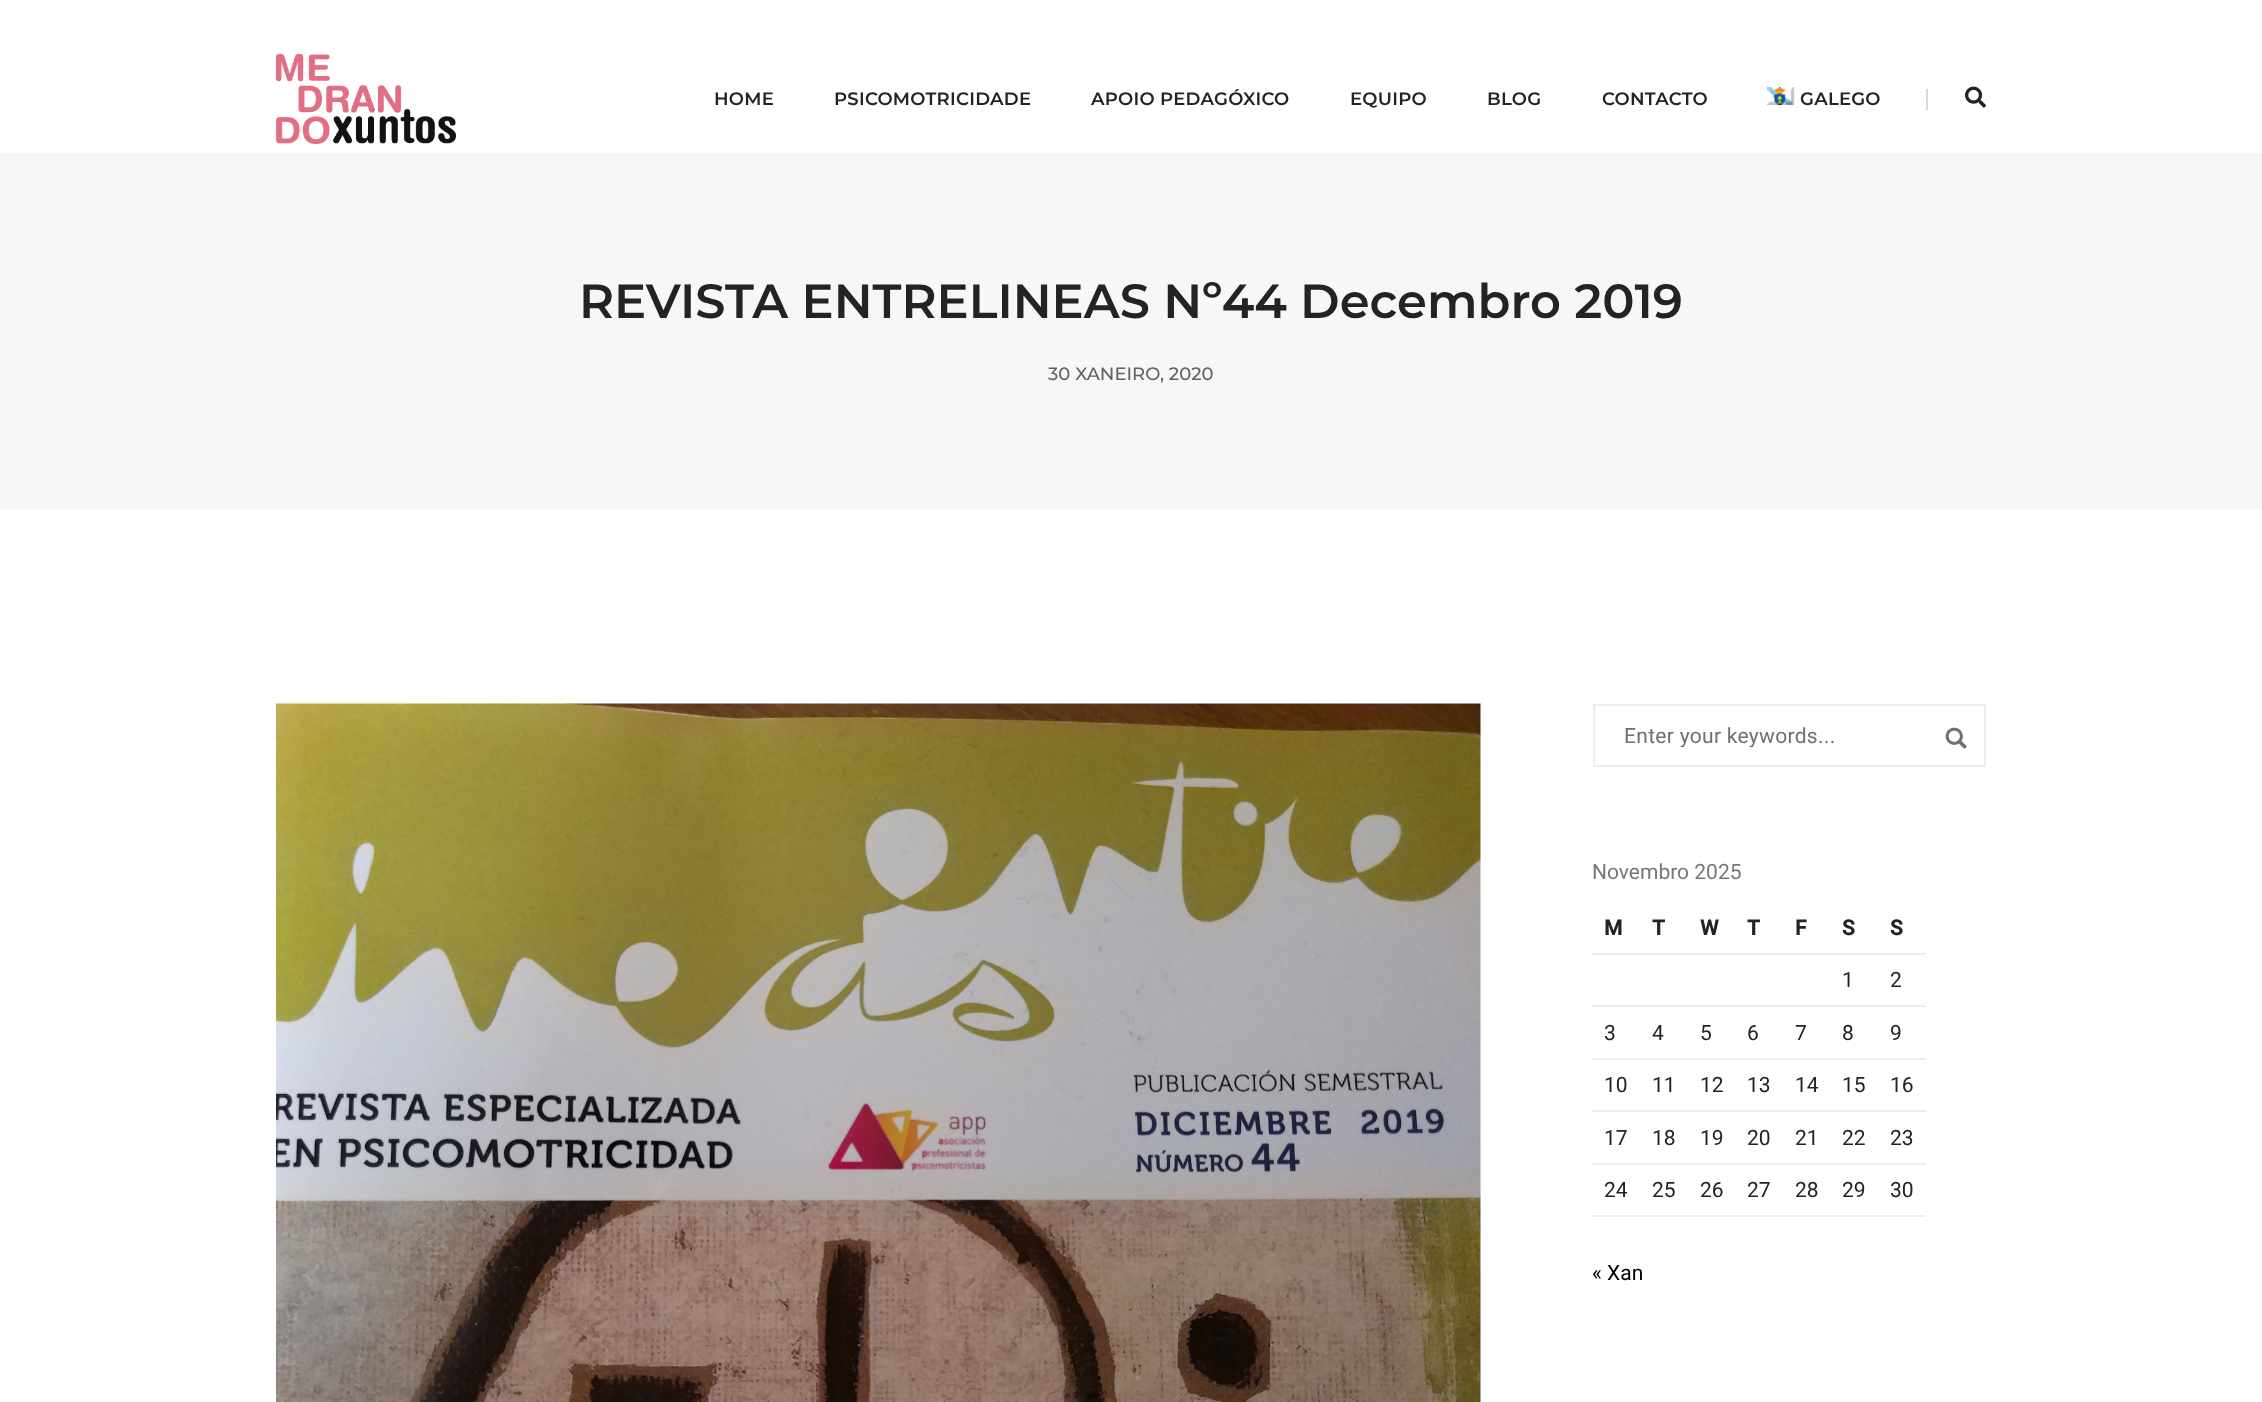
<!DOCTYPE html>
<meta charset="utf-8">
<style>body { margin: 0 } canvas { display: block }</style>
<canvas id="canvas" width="2262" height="1402"></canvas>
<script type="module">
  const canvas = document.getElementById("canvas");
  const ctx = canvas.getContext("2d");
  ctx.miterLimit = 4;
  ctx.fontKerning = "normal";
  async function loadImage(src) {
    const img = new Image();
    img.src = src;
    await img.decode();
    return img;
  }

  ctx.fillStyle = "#ffffff";
  ctx.fillRect(0, 0, 2262, 1402);
  ctx.drawImage(await loadImage("img1.png"), 276, 54, 180, 90);
  ctx.letterSpacing = "0.25px";
  ctx.font = "600 18px Montserrat";
  ctx.fillStyle = "#232323";
  ctx.fillText("HOME", 714, 105);
  ctx.fillText("PSICOMOTRICIDADE", 834, 105);
  ctx.fillText("APOIO PEDAGÓXICO", 1091, 105);
  ctx.fillText("EQUIPO", 1350, 105);
  ctx.fillText("BLOG", 1487, 105);
  ctx.fillText("CONTACTO", 1602, 105);
  ctx.drawImage(await loadImage("img2.png"), 1767, 87, 28, 18);
  ctx.fillText("GALEGO", 1800, 105);
  ctx.fillStyle = "#d9d9d9";
  ctx.fillRect(1926, 89, 2, 21);
  ctx.drawImage(await loadImage("img3.png"), 1965, 86, 21, 22);
  ctx.fillStyle = "#f7f7f7";
  ctx.fillRect(0, 153, 2262, 356);
  ctx.letterSpacing = "0px";
  ctx.font = "600 48px Montserrat";
  ctx.fillStyle = "#232323";
  ctx.fillText("REVISTA ENTRELINEAS Nº44 Decembro 2019", 579, 318);
  ctx.font = "500 18px Montserrat";
  ctx.fillStyle = "#626262";
  ctx.fillText("30 XANEIRO, 2020", 1048, 380);
  ctx.drawImage(await loadImage("img4.png"), 276, 703, 1205, 699);
  ctx.strokeStyle = "#ededed";
  ctx.lineWidth = 2;
  ctx.strokeRect(1594, 705, 391, 61);
  ctx.save();
  ctx.beginPath();
  ctx.rect(1625, 723, 307, 24);
  ctx.clip();
  ctx.letterSpacing = "0.3px";
  ctx.font = "21px Roboto";
  ctx.fillStyle = "#6f6f6f";
  ctx.fillText("Enter your keywords...", 1624, 743);
  ctx.restore();
  ctx.drawImage(await loadImage("img5.png"), 1945, 727, 22, 22);
  ctx.font = "21px Roboto";
  ctx.fillStyle = "#777777";
  ctx.fillText("Novembro 2025", 1592, 879);
  ctx.font = "bold 21px Roboto";
  ctx.fillStyle = "#232323";
  ctx.fillText("M", 1604, 935);
  ctx.fillText("T", 1652, 935);
  ctx.fillText("W", 1700, 935);
  ctx.fillText("T", 1747, 935);
  ctx.fillText("F", 1795, 935);
  ctx.fillText("S", 1842, 935);
  ctx.fillStyle = "#ededed";
  ctx.fillRect(1592, 953, 334, 2);
  ctx.fillStyle = "#232323";
  ctx.fillText("S", 1890, 935);
  ctx.font = "21px Roboto";
  ctx.fillText("1", 1842, 987);
  ctx.fillStyle = "#ededed";
  ctx.fillRect(1592, 1005, 334, 2);
  ctx.fillStyle = "#232323";
  ctx.fillText("2", 1890, 987);
  ctx.fillText("3", 1604, 1040);
  ctx.fillText("4", 1652, 1040);
  ctx.fillText("5", 1700, 1040);
  ctx.fillText("6", 1747, 1040);
  ctx.fillText("7", 1795, 1040);
  ctx.fillText("8", 1842, 1040);
  ctx.fillStyle = "#ededed";
  ctx.fillRect(1592, 1058, 334, 2);
  ctx.fillStyle = "#232323";
  ctx.fillText("9", 1890, 1040);
  ctx.fillText("10", 1604, 1092);
  ctx.fillText("11", 1652, 1092);
  ctx.fillText("12", 1700, 1092);
  ctx.fillText("13", 1747, 1092);
  ctx.fillText("14", 1795, 1092);
  ctx.fillText("15", 1842, 1092);
  ctx.fillStyle = "#ededed";
  ctx.fillRect(1592, 1110, 334, 2);
  ctx.fillStyle = "#232323";
  ctx.fillText("16", 1890, 1092);
  ctx.fillText("17", 1604, 1145);
  ctx.fillText("18", 1652, 1145);
  ctx.fillText("19", 1700, 1145);
  ctx.fillText("20", 1747, 1145);
  ctx.fillText("21", 1795, 1145);
  ctx.fillText("22", 1842, 1145);
  ctx.fillStyle = "#ededed";
  ctx.fillRect(1592, 1163, 334, 2);
  ctx.fillStyle = "#232323";
  ctx.fillText("23", 1890, 1145);
  ctx.fillText("24", 1604, 1197);
  ctx.fillText("25", 1652, 1197);
  ctx.fillText("26", 1700, 1197);
  ctx.fillText("27", 1747, 1197);
  ctx.fillText("28", 1795, 1197);
  ctx.fillText("29", 1842, 1197);
  ctx.fillStyle = "#ededed";
  ctx.fillRect(1592, 1215, 334, 2);
  ctx.fillStyle = "#232323";
  ctx.fillText("30", 1890, 1197);
  ctx.fillStyle = "#000000";
  ctx.fillText("« Xan", 1592, 1280);
</script>
